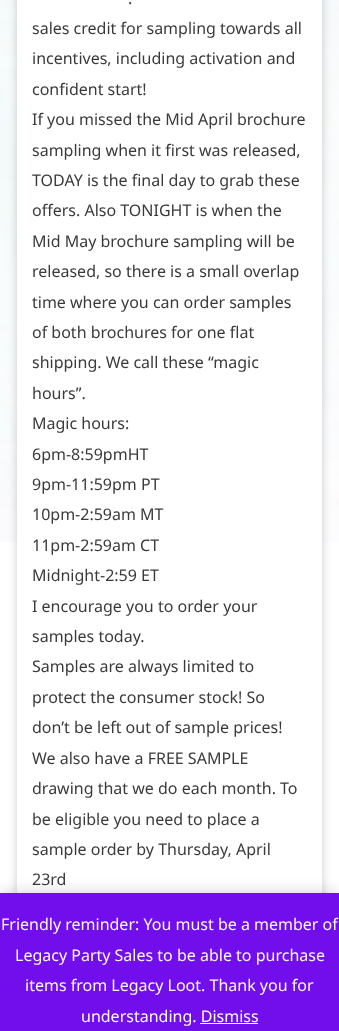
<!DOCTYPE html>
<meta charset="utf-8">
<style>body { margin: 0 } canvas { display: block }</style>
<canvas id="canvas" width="339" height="1031"></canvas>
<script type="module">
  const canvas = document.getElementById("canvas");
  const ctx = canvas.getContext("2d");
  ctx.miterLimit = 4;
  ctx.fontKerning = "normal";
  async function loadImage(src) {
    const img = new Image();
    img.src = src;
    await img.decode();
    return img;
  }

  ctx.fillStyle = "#ffffff";
  ctx.fillRect(0, 0, 339, 1031);
  ctx.drawImage(await loadImage("img1.png"), 0, 0, 339, 542);
  ctx.fillStyle = "rgba(0, 0, 0, 0.2)";
  ctx.filter = "blur(5px)";
  ctx.beginPath();
  ctx.rect(17, -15, 305, 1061);
  ctx.fill();
  ctx.filter = "none";
  ctx.fillStyle = "#ffffff";
  ctx.fillRect(17, 0, 305, 893);
  ctx.font = "16px Noto Sans";
  ctx.fillStyle = "#3a3a3a";
  ctx.fillText(".", 128, 4);
  ctx.fillText("sales credit for sampling towards all", 32, 34);
  ctx.fillText("incentives, including activation and", 32, 64);
  ctx.fillText("confident start!", 32, 95);
  ctx.fillText("If you missed the Mid April brochure", 32, 125);
  ctx.fillText("sampling when it first was released,", 32, 156);
  ctx.fillText("TODAY is the final day to grab these", 32, 186);
  ctx.fillText("offers. Also TONIGHT is when the", 32, 216);
  ctx.fillText("Mid May brochure sampling will be", 32, 247);
  ctx.fillText("released, so there is a small overlap", 32, 277);
  ctx.fillText("time where you can order samples", 32, 308);
  ctx.fillText("of both brochures for one flat", 32, 338);
  ctx.fillText("shipping. We call these “magic", 32, 368);
  ctx.fillText("hours”.", 32, 399);
  ctx.fillText("Magic hours:", 32, 429);
  ctx.fillText("6pm-8:59pmHT", 32, 460);
  ctx.fillText("9pm-11:59pm PT", 32, 490);
  ctx.fillText("10pm-2:59am MT", 32, 520);
  ctx.fillText("11pm-2:59am CT", 32, 551);
  ctx.fillText("Midnight-2:59 ET", 32, 581);
  ctx.fillText("I encourage you to order your", 32, 612);
  ctx.fillText("samples today.", 32, 642);
  ctx.fillText("Samples are always limited to", 32, 672);
  ctx.fillText("protect the consumer stock! So", 32, 703);
  ctx.fillText("don’t be left out of sample prices!", 32, 733);
  ctx.fillText("We also have a FREE SAMPLE", 32, 764);
  ctx.fillText("drawing that we do each month. To", 32, 794);
  ctx.fillText("be eligible you need to place a", 32, 825);
  ctx.fillText("sample order by Thursday, April", 32, 855);
  ctx.fillText("23rd", 32, 885);
  ctx.fillStyle = "rgba(0, 0, 0, 0.2)";
  ctx.filter = "blur(8px)";
  ctx.beginPath();
  ctx.rect(0, 894, 339, 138);
  ctx.fill();
  ctx.filter = "none";
  ctx.fillStyle = "#720eec";
  ctx.fillRect(0, 893, 339, 138);
  ctx.fillStyle = "#fcfbfe";
  ctx.fillText("Friendly reminder: You must be a member of", 1, 930);
  ctx.fillText("Legacy Party Sales to be able to purchase", 15, 961);
  ctx.fillText("items from Legacy Loot. Thank you for", 25, 991);
  ctx.fillText("understanding. Dismiss", 81, 1022);
  ctx.fillRect(200, 1023, 58, 1);
</script>
